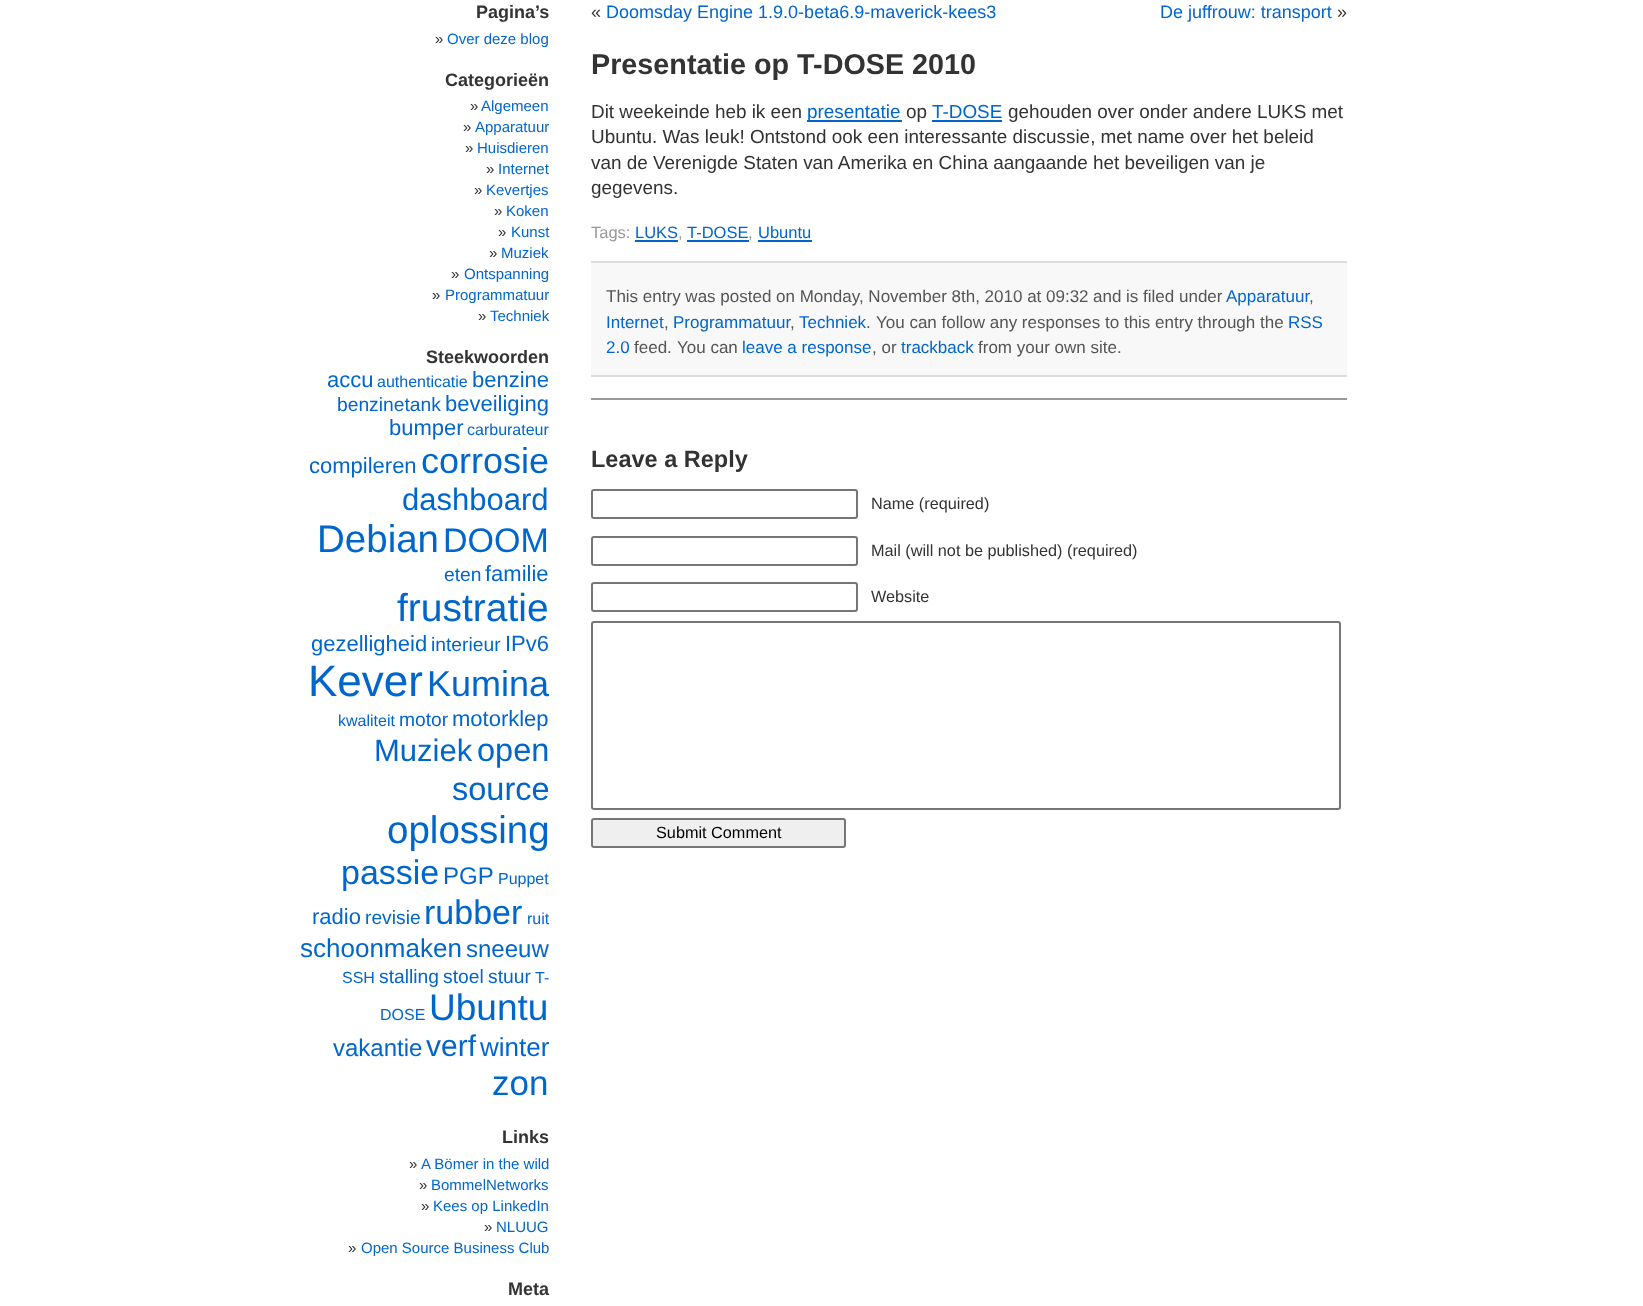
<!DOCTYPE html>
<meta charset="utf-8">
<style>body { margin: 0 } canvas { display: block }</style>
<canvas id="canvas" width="1643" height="1306"></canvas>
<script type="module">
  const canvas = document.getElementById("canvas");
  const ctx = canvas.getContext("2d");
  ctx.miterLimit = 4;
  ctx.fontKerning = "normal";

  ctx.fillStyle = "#ffffff";
  ctx.fillRect(0, 0, 1643, 1306);
  ctx.font = "bold 18px Liberation Sans";
  ctx.fillStyle = "#333333";
  ctx.fillText("Pagina’s", 476, 18);
  ctx.font = "15px Liberation Sans";
  ctx.fillText("»", 435, 44);
  ctx.fillStyle = "#0066cc";
  ctx.fillText("Over deze blog", 447, 44);
  ctx.font = "bold 18px Liberation Sans";
  ctx.fillStyle = "#333333";
  ctx.fillText("Categorieën", 445, 86);
  ctx.font = "15px Liberation Sans";
  ctx.fillText("»", 470, 111);
  ctx.fillStyle = "#0066cc";
  ctx.fillText("Algemeen", 481, 111);
  ctx.fillStyle = "#333333";
  ctx.fillText("»", 463, 132);
  ctx.fillStyle = "#0066cc";
  ctx.fillText("Apparatuur", 475, 132);
  ctx.fillStyle = "#333333";
  ctx.fillText("»", 465, 153);
  ctx.fillStyle = "#0066cc";
  ctx.fillText("Huisdieren", 477, 153);
  ctx.fillStyle = "#333333";
  ctx.fillText("»", 486, 174);
  ctx.fillStyle = "#0066cc";
  ctx.fillText("Internet", 498, 174);
  ctx.fillStyle = "#333333";
  ctx.fillText("»", 474, 195);
  ctx.fillStyle = "#0066cc";
  ctx.fillText("Kevertjes", 486, 195);
  ctx.fillStyle = "#333333";
  ctx.fillText("»", 494, 216);
  ctx.fillStyle = "#0066cc";
  ctx.fillText("Koken", 506, 216);
  ctx.fillStyle = "#333333";
  ctx.fillText("»", 498, 237);
  ctx.fillStyle = "#0066cc";
  ctx.fillText("Kunst", 511, 237);
  ctx.fillStyle = "#333333";
  ctx.fillText("»", 489, 258);
  ctx.fillStyle = "#0066cc";
  ctx.fillText("Muziek", 501, 258);
  ctx.fillStyle = "#333333";
  ctx.fillText("»", 451, 279);
  ctx.fillStyle = "#0066cc";
  ctx.fillText("Ontspanning", 464, 279);
  ctx.fillStyle = "#333333";
  ctx.fillText("»", 432, 300);
  ctx.fillStyle = "#0066cc";
  ctx.fillText("Programmatuur", 445, 300);
  ctx.fillStyle = "#333333";
  ctx.fillText("»", 478, 321);
  ctx.fillStyle = "#0066cc";
  ctx.fillText("Techniek", 490, 321);
  ctx.font = "bold 18px Liberation Sans";
  ctx.fillStyle = "#333333";
  ctx.fillText("Steekwoorden", 426, 363);
  ctx.font = "22px Liberation Sans";
  ctx.fillStyle = "#0066cc";
  ctx.fillText("accu", 327, 387);
  ctx.font = "16px Liberation Sans";
  ctx.fillText("authenticatie", 377, 387);
  ctx.font = "22px Liberation Sans";
  ctx.fillText("benzine", 472, 387);
  ctx.font = "19.25px Liberation Sans";
  ctx.fillText("benzinetank", 337, 411);
  ctx.font = "22px Liberation Sans";
  ctx.fillText("beveiliging", 445, 411);
  ctx.fillText("bumper", 389, 435);
  ctx.font = "16px Liberation Sans";
  ctx.fillText("carburateur", 467, 435);
  ctx.font = "22px Liberation Sans";
  ctx.fillText("compileren", 309, 473);
  ctx.font = "36px Liberation Sans";
  ctx.fillText("corrosie", 421, 473);
  ctx.font = "31px Liberation Sans";
  ctx.fillText("dashboard", 402, 510);
  ctx.font = "38.5px Liberation Sans";
  ctx.fillText("Debian", 317, 552);
  ctx.font = "34px Liberation Sans";
  ctx.fillText("DOOM", 443, 552);
  ctx.font = "19.25px Liberation Sans";
  ctx.fillText("eten", 444, 581);
  ctx.font = "22px Liberation Sans";
  ctx.fillText("familie", 485, 581);
  ctx.font = "39px Liberation Sans";
  ctx.fillText("frustratie", 397, 621);
  ctx.font = "22px Liberation Sans";
  ctx.fillText("gezelligheid", 311, 651);
  ctx.font = "19.25px Liberation Sans";
  ctx.fillText("interieur", 431, 651);
  ctx.font = "22px Liberation Sans";
  ctx.fillText("IPv6", 505, 651);
  ctx.font = "44px Liberation Sans";
  ctx.fillText("Kever", 308, 696);
  ctx.font = "36px Liberation Sans";
  ctx.fillText("Kumina", 427, 696);
  ctx.font = "16px Liberation Sans";
  ctx.fillText("kwaliteit", 338, 726);
  ctx.font = "19.25px Liberation Sans";
  ctx.fillText("motor", 399, 726);
  ctx.font = "22px Liberation Sans";
  ctx.fillText("motorklep", 452, 726);
  ctx.font = "31px Liberation Sans";
  ctx.fillText("Muziek", 374, 761);
  ctx.font = "32.5px Liberation Sans";
  ctx.fillText("open", 477, 761);
  ctx.fillText("source", 452, 800);
  ctx.font = "38.5px Liberation Sans";
  ctx.fillText("oplossing", 387, 843);
  ctx.font = "34px Liberation Sans";
  ctx.fillText("passie", 341, 884);
  ctx.font = "24px Liberation Sans";
  ctx.fillText("PGP", 443, 884);
  ctx.font = "16px Liberation Sans";
  ctx.fillText("Puppet", 498, 884);
  ctx.font = "22px Liberation Sans";
  ctx.fillText("radio", 312, 924);
  ctx.font = "19.25px Liberation Sans";
  ctx.fillText("revisie", 365, 924);
  ctx.font = "34px Liberation Sans";
  ctx.fillText("rubber", 424, 924);
  ctx.font = "16px Liberation Sans";
  ctx.fillText("ruit", 527, 924);
  ctx.font = "26px Liberation Sans";
  ctx.fillText("schoonmaken", 300, 957);
  ctx.font = "24px Liberation Sans";
  ctx.fillText("sneeuw", 466, 957);
  ctx.font = "16px Liberation Sans";
  ctx.fillText("SSH", 342, 983);
  ctx.font = "19.25px Liberation Sans";
  ctx.fillText("stalling", 379, 983);
  ctx.fillText("stoel", 443, 983);
  ctx.fillText("stuur", 488, 983);
  ctx.font = "16px Liberation Sans";
  ctx.fillText("T-", 535, 983);
  ctx.fillText("DOSE", 380, 1020);
  ctx.font = "37px Liberation Sans";
  ctx.fillText("Ubuntu", 429, 1020);
  ctx.font = "24px Liberation Sans";
  ctx.fillText("vakantie", 333, 1056);
  ctx.font = "30px Liberation Sans";
  ctx.fillText("verf", 426, 1056);
  ctx.font = "26px Liberation Sans";
  ctx.fillText("winter", 480, 1056);
  ctx.font = "35px Liberation Sans";
  ctx.fillText("zon", 492, 1095);
  ctx.font = "bold 18px Liberation Sans";
  ctx.fillStyle = "#333333";
  ctx.fillText("Links", 502, 1143);
  ctx.font = "15px Liberation Sans";
  ctx.fillText("»", 409, 1169);
  ctx.fillStyle = "#0066cc";
  ctx.fillText("A Bömer in the wild", 421, 1169);
  ctx.fillStyle = "#333333";
  ctx.fillText("»", 419, 1190);
  ctx.fillStyle = "#0066cc";
  ctx.fillText("BommelNetworks", 431, 1190);
  ctx.fillStyle = "#333333";
  ctx.fillText("»", 421, 1211);
  ctx.fillStyle = "#0066cc";
  ctx.fillText("Kees op LinkedIn", 433, 1211);
  ctx.fillStyle = "#333333";
  ctx.fillText("»", 484, 1232);
  ctx.fillStyle = "#0066cc";
  ctx.fillText("NLUUG", 496, 1232);
  ctx.fillStyle = "#333333";
  ctx.fillText("»", 348, 1253);
  ctx.fillStyle = "#0066cc";
  ctx.fillText("Open Source Business Club", 361, 1253);
  ctx.font = "bold 18px Liberation Sans";
  ctx.fillStyle = "#333333";
  ctx.fillText("Meta", 508, 1295);
  ctx.font = "18px Liberation Sans";
  ctx.fillText("«", 591, 18);
  ctx.fillStyle = "#0066cc";
  ctx.fillText("Doomsday Engine 1.9.0-beta6.9-maverick-kees3", 606, 18);
  ctx.fillText("De juffrouw: transport", 1160, 18);
  ctx.fillStyle = "#333333";
  ctx.fillText("»", 1337, 18);
  ctx.fillStyle = "#999999";
  ctx.fillRect(591, 398, 756, 2);
  ctx.font = "bold 28.75px Liberation Sans";
  ctx.fillStyle = "#333333";
  ctx.fillText("Presentatie op T-DOSE 2010", 591, 74);
  ctx.font = "18.9px Liberation Sans";
  ctx.fillText("Dit weekeinde heb ik een", 591, 118);
  ctx.fillStyle = "#0066cc";
  ctx.fillRect(807, 120, 95, 2);
  ctx.fillText("presentatie", 807, 118);
  ctx.fillStyle = "#333333";
  ctx.fillText("op", 906, 118);
  ctx.fillStyle = "#0066cc";
  ctx.fillText("T-DOSE", 932, 118);
  ctx.fillRect(932, 120, 70, 2);
  ctx.fillStyle = "#333333";
  ctx.fillText("gehouden over onder andere LUKS met", 1008, 118);
  ctx.fillText("Ubuntu. Was leuk! Ontstond ook een interessante discussie, met name over het beleid", 591, 143);
  ctx.fillText("van de Verenigde Staten van Amerika en China aangaande het beveiligen van je", 591, 169);
  ctx.fillText("gegevens.", 591, 194);
  ctx.font = "16.5px Liberation Sans";
  ctx.fillStyle = "#999999";
  ctx.fillText("Tags:", 591, 238);
  ctx.fillStyle = "#0066cc";
  ctx.fillText("LUKS", 635, 238);
  ctx.fillRect(635, 240, 43, 2);
  ctx.fillStyle = "#999999";
  ctx.fillText(",", 678, 238);
  ctx.fillStyle = "#0066cc";
  ctx.fillText("T-DOSE", 687, 238);
  ctx.fillRect(687, 240, 62, 2);
  ctx.fillStyle = "#999999";
  ctx.fillText(",", 748, 238);
  ctx.fillStyle = "#0066cc";
  ctx.fillText("Ubuntu", 758, 238);
  ctx.fillRect(758, 240, 54, 2);
  ctx.fillStyle = "#f8f8f8";
  ctx.fillRect(591, 263, 756, 112);
  ctx.fillStyle = "#dddddd";
  ctx.fillRect(591, 261, 756, 2);
  ctx.fillRect(591, 375, 756, 2);
  ctx.font = "17px Liberation Sans";
  ctx.fillStyle = "#555555";
  ctx.fillText("This entry was posted on Monday, November 8th, 2010 at 09:32", 606, 302);
  ctx.fillText("and is filed under", 1093, 302);
  ctx.fillStyle = "#0066cc";
  ctx.fillText("Apparatuur", 1226, 302);
  ctx.fillStyle = "#555555";
  ctx.fillText(",", 1309, 302);
  ctx.fillStyle = "#0066cc";
  ctx.fillText("Internet", 606, 328);
  ctx.fillStyle = "#555555";
  ctx.fillText(",", 664, 328);
  ctx.fillStyle = "#0066cc";
  ctx.fillText("Programmatuur", 673, 328);
  ctx.fillStyle = "#555555";
  ctx.fillText(",", 790, 328);
  ctx.fillStyle = "#0066cc";
  ctx.fillText("Techniek", 799, 328);
  ctx.fillStyle = "#555555";
  ctx.fillText(".", 866, 328);
  ctx.fillText("You can follow any responses to this entry through the", 876, 328);
  ctx.fillStyle = "#0066cc";
  ctx.fillText("RSS", 1288, 328);
  ctx.fillText("2.0", 606, 353);
  ctx.fillStyle = "#555555";
  ctx.fillText("feed.", 634, 353);
  ctx.fillText("You can", 677, 353);
  ctx.fillStyle = "#0066cc";
  ctx.fillText("leave a response", 742, 353);
  ctx.fillStyle = "#555555";
  ctx.fillText(", or", 872, 353);
  ctx.fillStyle = "#0066cc";
  ctx.fillText("trackback", 901, 353);
  ctx.fillStyle = "#555555";
  ctx.fillText("from your own site.", 978, 353);
  ctx.font = "bold 23.5px Liberation Sans";
  ctx.fillStyle = "#333333";
  ctx.fillText("Leave a Reply", 591, 467);
  ctx.beginPath();
  ctx.roundRect(592, 490, 265, 28, 2);
  ctx.strokeStyle = "#767676";
  ctx.lineWidth = 2;
  ctx.stroke();
  ctx.font = "16.25px Liberation Sans";
  ctx.fillText("Name (required)", 871, 509);
  ctx.beginPath();
  ctx.roundRect(592, 537, 265, 28, 2);
  ctx.stroke();
  ctx.fillText("Mail (will not be published) (required)", 871, 556);
  ctx.beginPath();
  ctx.roundRect(592, 583, 265, 28, 2);
  ctx.stroke();
  ctx.fillText("Website", 871, 602);
  ctx.beginPath();
  ctx.roundRect(592, 622, 748, 187, 2);
  ctx.stroke();
  ctx.fillStyle = "#efefef";
  ctx.beginPath();
  ctx.roundRect(592, 819, 253, 28, 2);
  ctx.fill();
  ctx.stroke();
  ctx.fillStyle = "#000000";
  ctx.fillText("Submit Comment", 656, 838);
</script>
